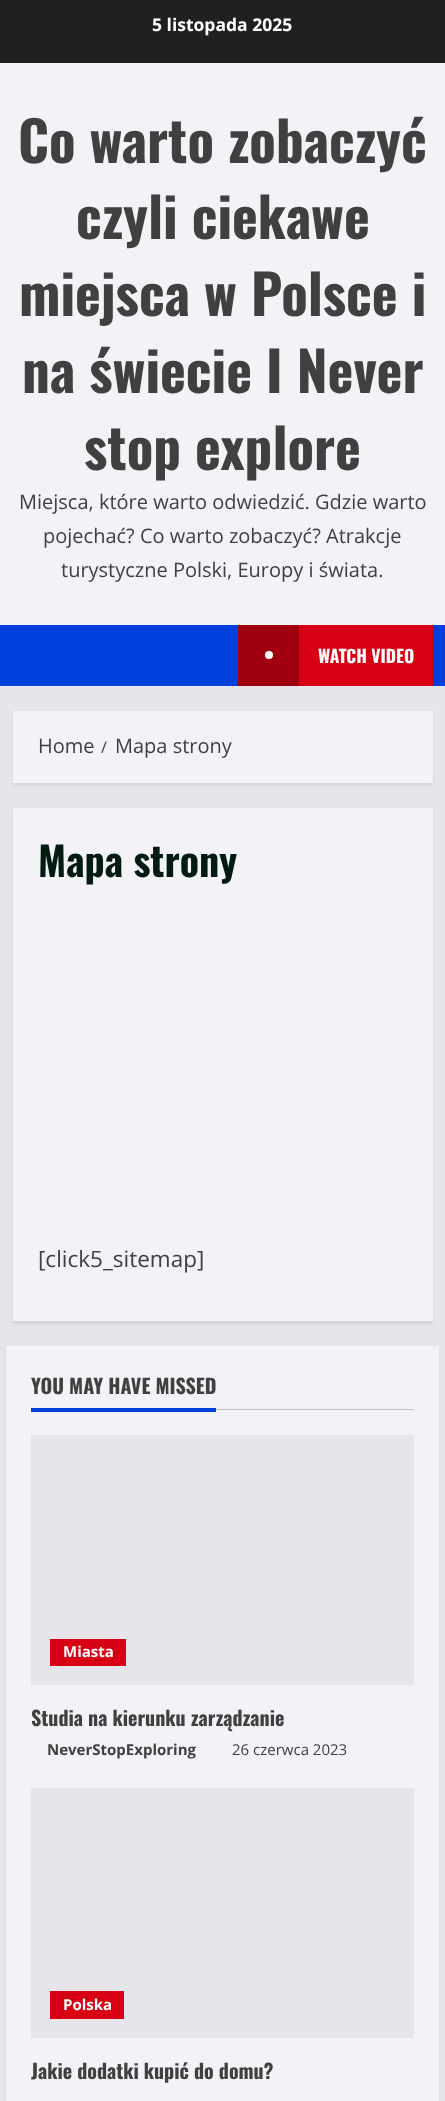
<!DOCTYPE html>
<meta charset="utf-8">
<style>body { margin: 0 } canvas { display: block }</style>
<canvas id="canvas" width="445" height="2101"></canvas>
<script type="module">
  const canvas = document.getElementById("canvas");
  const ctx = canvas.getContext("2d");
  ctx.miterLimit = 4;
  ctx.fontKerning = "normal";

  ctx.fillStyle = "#e5e5ea";
  ctx.fillRect(0, 0, 445, 2101);
  ctx.fillStyle = "#202020";
  ctx.fillRect(0, 0, 445, 63);
  ctx.font = "bold 17.5px Open Sans";
  ctx.fillStyle = "#ffffff";
  ctx.fillText("5 listopada 2025", 152, 31);
  ctx.fillStyle = "#f2f2f7";
  ctx.fillRect(0, 63, 445, 562);
  ctx.font = "bold 55px Oswald";
  ctx.fillStyle = "#404040";
  ctx.fillText("Co warto zobaczyć", 18, 163);
  ctx.fillText("czyli ciekawe", 76, 239);
  ctx.fillText("miejsca w Polsce i", 19, 316);
  ctx.fillText("na świecie I Never", 22, 393);
  ctx.fillText("stop explore", 84, 470);
  ctx.font = "20px Open Sans";
  ctx.fillText("Miejsca, które warto odwiedzić. Gdzie warto", 19, 509);
  ctx.fillText("pojechać? Co warto zobaczyć? Atrakcje", 43, 543);
  ctx.fillText("turystyczne Polski, Europy i świata.", 61, 577);
  ctx.fillStyle = "#0140dd";
  ctx.fillRect(0, 625, 445, 61);
  ctx.fillStyle = "#d70015";
  ctx.fillRect(299, 625, 134, 61);
  ctx.fillStyle = "#a10010";
  ctx.fillRect(238, 625, 61, 61);
  ctx.fillStyle = "#ffffff";
  ctx.beginPath();
  ctx.arc(269, 655, 4, 0, Math.PI * 2);
  ctx.fill();
  ctx.font = "bold 17.5px Oswald";
  ctx.fillText("WATCH VIDEO", 318, 663);
  ctx.fillStyle = "rgba(0, 0, 0, 0.08)";
  ctx.filter = "blur(1px)";
  ctx.beginPath();
  ctx.rect(13, 714, 420, 71);
  ctx.fill();
  ctx.filter = "none";
  ctx.fillStyle = "#f2f2f7";
  ctx.fillRect(13, 711, 420, 72);
  ctx.font = "20px Open Sans";
  ctx.fillStyle = "#404040";
  ctx.fillText("Home", 38, 753);
  ctx.font = "16px Open Sans";
  ctx.fillText("/", 101, 753);
  ctx.font = "20px Open Sans";
  ctx.fillText("Mapa strony", 115, 753);
  ctx.fillStyle = "rgba(0, 0, 0, 0.08)";
  ctx.filter = "blur(1px)";
  ctx.beginPath();
  ctx.rect(13, 810, 420, 514);
  ctx.fill();
  ctx.filter = "none";
  ctx.fillStyle = "#f2f2f7";
  ctx.fillRect(13, 808, 420, 513);
  ctx.font = "bold 40px Oswald";
  ctx.fillStyle = "#031b11";
  ctx.fillText("Mapa strony", 38, 877);
  ctx.font = "22.5px Open Sans";
  ctx.fillStyle = "#404040";
  ctx.fillText("[click5_sitemap]", 38, 1267);
  ctx.fillStyle = "rgba(0, 0, 0, 0.08)";
  ctx.filter = "blur(1px)";
  ctx.beginPath();
  ctx.rect(6, 1349, 433, 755);
  ctx.fill();
  ctx.filter = "none";
  ctx.fillStyle = "#f2f2f7";
  ctx.fillRect(6, 1346, 433, 755);
  ctx.fillStyle = "#c2c2c6";
  ctx.fillRect(216, 1409, 198, 1);
  ctx.font = "bold 20px Oswald";
  ctx.fillStyle = "#404040";
  ctx.fillText("YOU MAY HAVE MISSED", 31, 1394);
  ctx.fillStyle = "#0140dd";
  ctx.fillRect(31, 1408, 185, 4);
  ctx.fillStyle = "#e5e5ea";
  ctx.fillRect(31, 1435, 383, 250);
  ctx.fillStyle = "#d70015";
  ctx.fillRect(50, 1639, 76, 27);
  ctx.font = "bold 15px Open Sans";
  ctx.fillStyle = "#ffffff";
  ctx.fillText("Miasta", 63, 1657);
  ctx.font = "bold 20px Oswald";
  ctx.fillStyle = "#404040";
  ctx.fillText("Studia na kierunku zarządzanie", 31, 1726);
  ctx.font = "bold 15px Open Sans";
  ctx.fillText("NeverStopExploring", 47, 1755);
  ctx.font = "15px Open Sans";
  ctx.fillText("26 czerwca 2023", 232, 1755);
  ctx.fillStyle = "#e5e5ea";
  ctx.fillRect(31, 1788, 383, 250);
  ctx.fillStyle = "#d70015";
  ctx.fillRect(50, 1991, 74, 28);
  ctx.font = "bold 15px Open Sans";
  ctx.fillStyle = "#ffffff";
  ctx.fillText("Polska", 63, 2010);
  ctx.font = "bold 20px Oswald";
  ctx.fillStyle = "#404040";
  ctx.fillText("Jakie dodatki kupić do domu?", 31, 2079);
</script>
